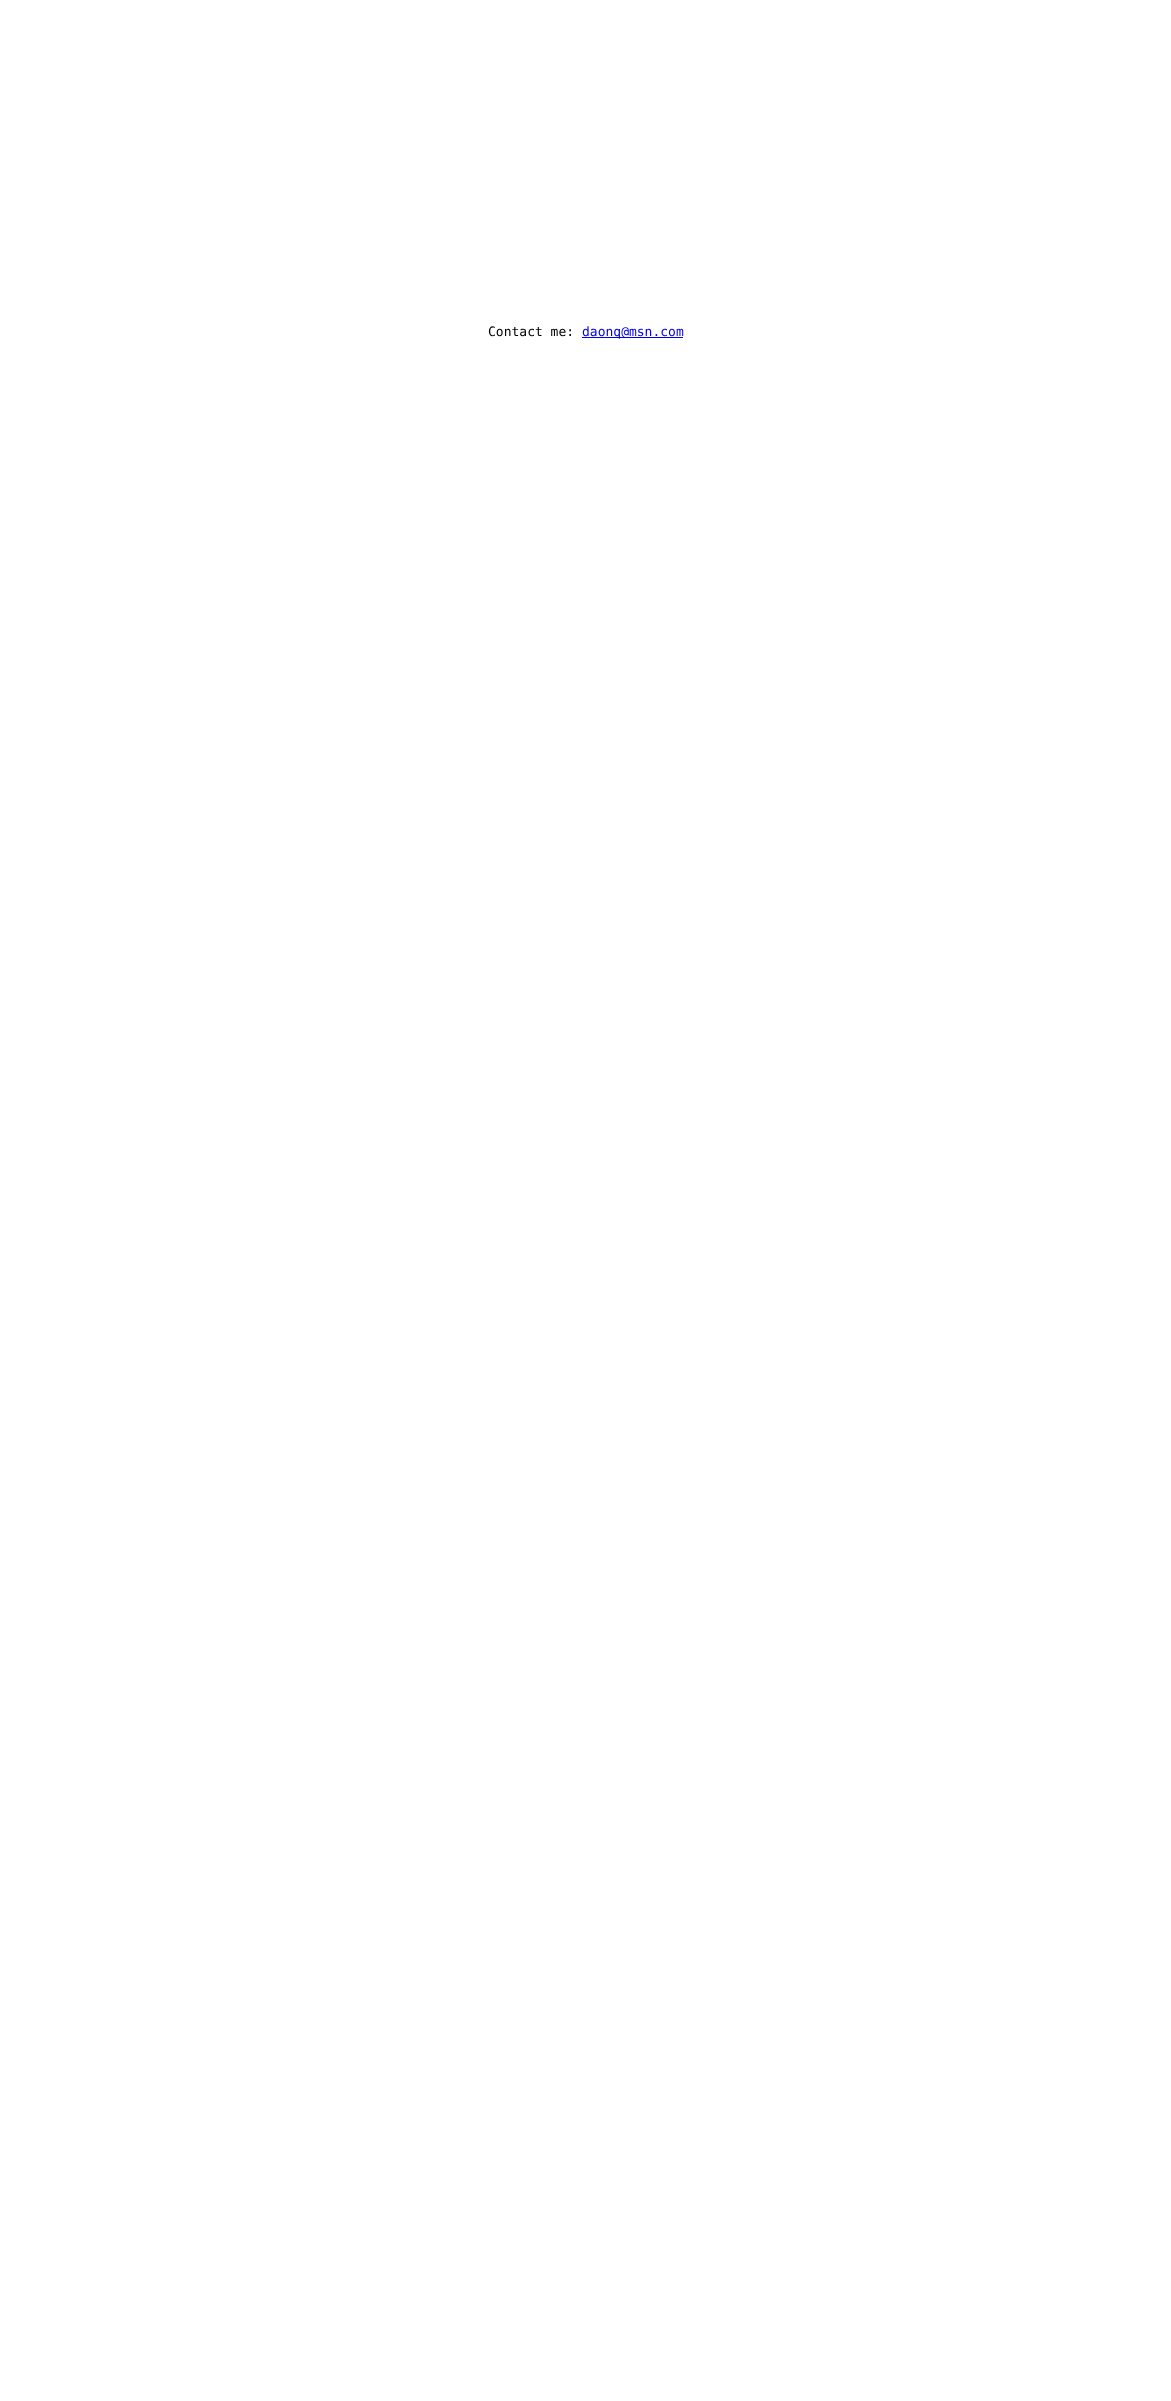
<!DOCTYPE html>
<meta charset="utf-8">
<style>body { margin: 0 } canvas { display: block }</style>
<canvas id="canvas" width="1171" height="2401"></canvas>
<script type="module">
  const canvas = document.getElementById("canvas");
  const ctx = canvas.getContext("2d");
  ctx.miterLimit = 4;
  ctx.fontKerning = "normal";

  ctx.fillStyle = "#ffffff";
  ctx.fillRect(0, 0, 1171, 2401);
  ctx.font = "13px DejaVu Sans Mono";
  ctx.fillStyle = "#000000";
  ctx.fillText("Contact me:", 488, 336);
  ctx.fillStyle = "#0000ee";
  ctx.fillRect(582, 337, 101, 1);
  ctx.fillText("daonq@msn.com", 582, 336);
</script>
